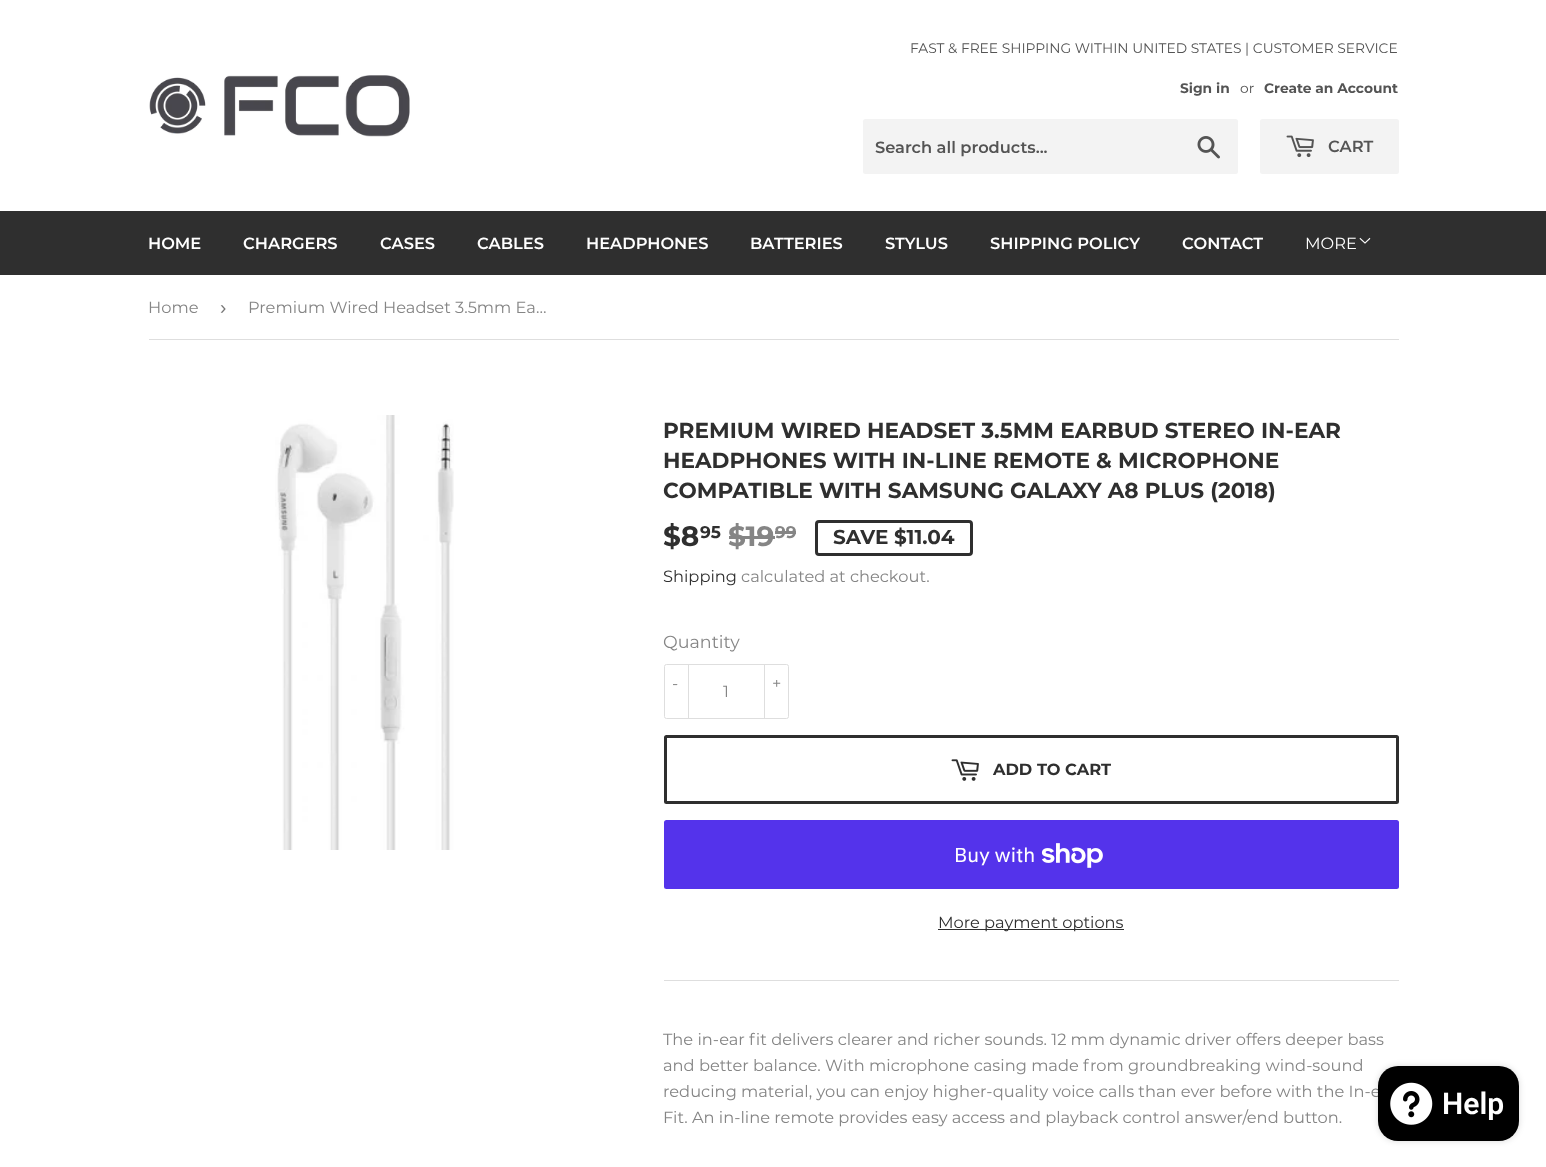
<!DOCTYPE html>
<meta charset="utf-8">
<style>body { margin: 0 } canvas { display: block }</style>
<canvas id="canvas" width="1546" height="1167"></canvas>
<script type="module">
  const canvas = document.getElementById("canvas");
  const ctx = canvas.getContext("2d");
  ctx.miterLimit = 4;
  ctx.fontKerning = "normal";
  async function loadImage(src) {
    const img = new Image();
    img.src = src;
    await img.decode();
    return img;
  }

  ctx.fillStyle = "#ffffff";
  ctx.fillRect(0, 0, 1546, 1167);
  ctx.drawImage(await loadImage("img1.png"), 149, 75, 261, 62);
  ctx.font = "13.8px Montserrat";
  ctx.fillStyle = "#545454";
  ctx.fillText("FAST & FREE SHIPPING WITHIN UNITED STATES | CUSTOMER SERVICE", 910, 53);
  ctx.font = "bold 13.8px Montserrat";
  ctx.fillText("Sign in", 1180, 93);
  ctx.font = "13.8px Montserrat";
  ctx.fillText("or", 1240, 93);
  ctx.font = "bold 13.8px Montserrat";
  ctx.fillText("Create an Account", 1264, 93);
  ctx.fillStyle = "#f3f3f3";
  ctx.beginPath();
  ctx.roundRect(863, 119, 375, 55, 2.5);
  ctx.fill();
  ctx.font = "600 16.25px Montserrat";
  ctx.fillStyle = "#545454";
  ctx.fillText("Search all products...", 875, 153);
  ctx.drawImage(await loadImage("img2.png"), 1197, 136, 23, 23);
  ctx.fillStyle = "#f3f3f3";
  ctx.beginPath();
  ctx.roundRect(1260, 119, 139, 55, 2.5);
  ctx.fill();
  ctx.drawImage(await loadImage("img3.png"), 1286, 135, 28, 23);
  ctx.fillStyle = "#545454";
  ctx.fillText("CART", 1328, 152);
  ctx.fillStyle = "#2f2f2f";
  ctx.fillRect(0, 211, 1546, 64);
  ctx.fillStyle = "#ffffff";
  ctx.fillText("HOME", 148, 249);
  ctx.fillText("CHARGERS", 243, 249);
  ctx.fillText("CASES", 380, 249);
  ctx.fillText("CABLES", 477, 249);
  ctx.fillText("HEADPHONES", 586, 249);
  ctx.fillText("BATTERIES", 750, 249);
  ctx.fillText("STYLUS", 885, 249);
  ctx.fillText("SHIPPING POLICY", 990, 249);
  ctx.fillText("CONTACT", 1182, 249);
  ctx.font = "16.25px Montserrat";
  ctx.fillText("MORE", 1305, 249);
  ctx.drawImage(await loadImage("img4.png"), 1359, 237, 12, 7);
  ctx.fillStyle = "#dedede";
  ctx.fillRect(149, 339, 1250, 1);
  ctx.fillStyle = "#858585";
  ctx.fillText("Home", 148, 313);
  ctx.font = "19px Liberation Sans";
  ctx.fillStyle = "#767676";
  ctx.fillText("›", 220, 314);
  ctx.font = "16.25px Montserrat";
  ctx.fillStyle = "#858585";
  ctx.fillText("Premium Wired Headset 3.5mm Ea…", 248, 313);
  ctx.drawImage(await loadImage("img5.png"), 275, 415, 179, 435);
  ctx.font = "bold 21.65px Montserrat";
  ctx.fillStyle = "#2f2f2f";
  ctx.fillText("PREMIUM WIRED HEADSET 3.5MM EARBUD STEREO IN-EAR", 663, 438);
  ctx.fillText("HEADPHONES WITH IN-LINE REMOTE & MICROPHONE", 663, 468);
  ctx.fillText("COMPATIBLE WITH SAMSUNG GALAXY A8 PLUS (2018)", 663, 498);
  ctx.font = "bold 28px Montserrat";
  ctx.fillText("$8", 663, 546);
  ctx.font = "bold 17px Montserrat";
  ctx.fillText("95", 700, 538);
  ctx.font = "bold 28px Montserrat";
  ctx.fillStyle = "#858585";
  ctx.fillText("$19", 728, 546);
  ctx.fillRect(729, 536, 46, 3);
  ctx.font = "bold 17px Montserrat";
  ctx.fillText("99", 775, 538);
  ctx.fillRect(775, 531, 21, 3);
  ctx.beginPath();
  ctx.roundRect(816.5, 521.5, 155, 33, 2.5);
  ctx.strokeStyle = "#2f2f2f";
  ctx.lineWidth = 3;
  ctx.stroke();
  ctx.font = "bold 20px Montserrat";
  ctx.fillStyle = "#2f2f2f";
  ctx.fillText("SAVE $11.04", 833, 544);
  ctx.font = "16.25px Montserrat";
  ctx.fillText("Shipping", 663, 582);
  ctx.fillStyle = "#858585";
  ctx.fillText("calculated at checkout.", 741, 582);
  ctx.font = "17.5px Montserrat";
  ctx.fillText("Quantity", 663, 648);
  ctx.beginPath();
  ctx.roundRect(664.5, 664.5, 124, 54, 2);
  ctx.strokeStyle = "#dedede";
  ctx.lineWidth = 1;
  ctx.stroke();
  ctx.fillStyle = "#dedede";
  ctx.fillRect(688, 664, 1, 55);
  ctx.font = "16.25px Montserrat";
  ctx.fillStyle = "#858585";
  ctx.fillText("-", 672, 689);
  ctx.fillText("1", 723, 697);
  ctx.fillStyle = "#dedede";
  ctx.fillRect(764, 664, 1, 55);
  ctx.fillStyle = "#858585";
  ctx.fillText("+", 772, 689);
  ctx.beginPath();
  ctx.roundRect(665.5, 736.5, 732, 66, 1);
  ctx.strokeStyle = "#2f2f2f";
  ctx.lineWidth = 3;
  ctx.stroke();
  ctx.drawImage(await loadImage("img6.png"), 951, 759, 28, 22);
  ctx.font = "bold 16.25px Montserrat";
  ctx.fillStyle = "#2f2f2f";
  ctx.fillText("ADD TO CART", 993, 775);
  ctx.fillStyle = "#5433eb";
  ctx.beginPath();
  ctx.roundRect(664, 820, 735, 69, 2.5);
  ctx.fill();
  ctx.font = "20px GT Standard";
  ctx.fillStyle = "#ffffff";
  ctx.fillText("Buy with", 954, 862);
  ctx.drawImage(await loadImage("img7.png"), 1041, 843, 62, 25);
  ctx.fillStyle = "#2f2f2f";
  ctx.fillRect(938, 929, 186, 1);
  ctx.font = "16.25px Montserrat";
  ctx.fillText("More payment options", 938, 928);
  ctx.fillStyle = "#dedede";
  ctx.fillRect(664, 980, 735, 1);
  ctx.fillStyle = "#858585";
  ctx.fillText("The in-ear fit delivers clearer and richer sounds. 12 mm dynamic driver offers deeper bass", 663, 1045);
  ctx.fillText("and better balance. With microphone casing made from groundbreaking wind-sound", 663, 1071);
  ctx.fillText("reducing material, you can enjoy higher-quality voice calls than ever before with the In-e", 663, 1097);
  ctx.fillText("Fit. An in-line remote provides easy access and playback control answer/end button.", 663, 1123);
  ctx.fillStyle = "rgba(0, 0, 0, 0.15)";
  ctx.filter = "blur(3px)";
  ctx.beginPath();
  ctx.roundRect(1378, 1066, 141, 75, 20);
  ctx.fill();
  ctx.filter = "none";
  ctx.fillStyle = "#000000";
  ctx.beginPath();
  ctx.roundRect(1378, 1066, 141, 75, 20);
  ctx.fill();
  ctx.drawImage(await loadImage("img8.png"), 1390, 1082, 43, 43);
  ctx.font = "600 30px Roboto";
  ctx.fillStyle = "#ffffff";
  ctx.fillText("Help", 1442, 1114);
</script>
